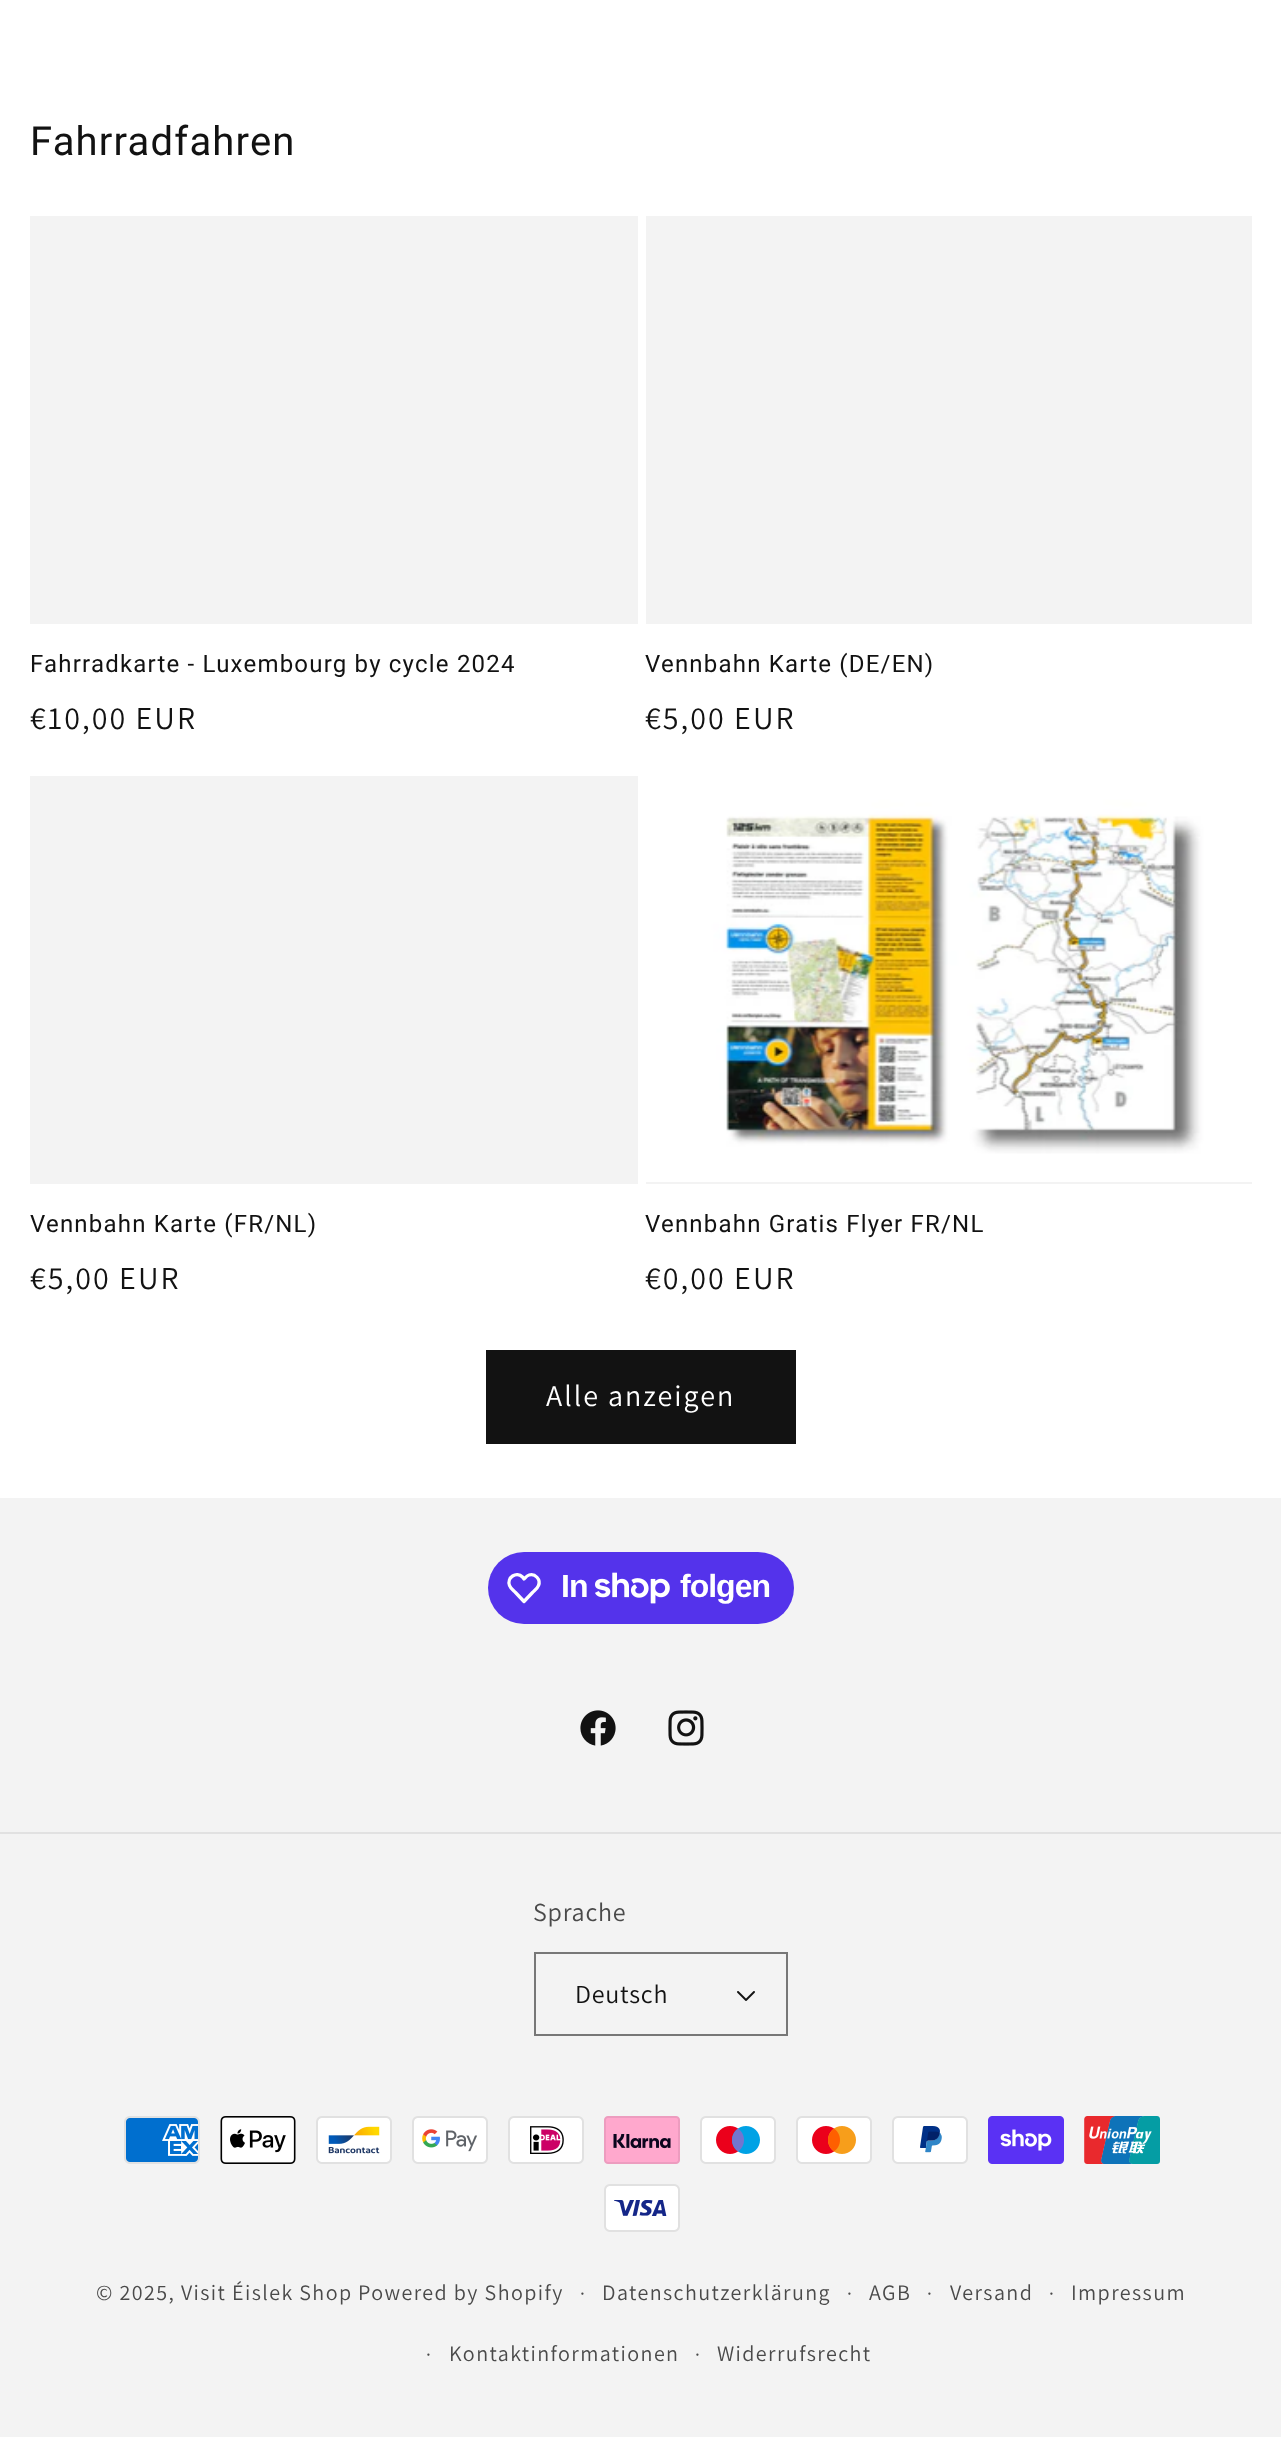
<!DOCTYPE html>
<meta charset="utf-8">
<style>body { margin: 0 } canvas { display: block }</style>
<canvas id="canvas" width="1281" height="2437"></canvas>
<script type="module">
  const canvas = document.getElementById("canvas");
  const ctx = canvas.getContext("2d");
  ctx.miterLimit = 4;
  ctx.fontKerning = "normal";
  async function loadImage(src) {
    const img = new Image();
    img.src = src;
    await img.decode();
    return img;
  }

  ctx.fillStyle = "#ffffff";
  ctx.fillRect(0, 0, 1281, 2437);
  ctx.letterSpacing = "1.2px";
  ctx.font = "40px Roboto";
  ctx.fillStyle = "#121212";
  ctx.fillText("Fahrradfahren", 30, 155);
  ctx.fillStyle = "#f3f3f3";
  ctx.fillRect(30, 216, 608, 408);
  ctx.font = "24px Roboto";
  ctx.fillStyle = "#121212";
  ctx.fillText("Fahrradkarte - Luxembourg by cycle 2024", 30, 672);
  ctx.letterSpacing = "2px";
  ctx.font = "32px Assistant";
  ctx.fillText("€10,00 EUR", 30, 729);
  ctx.fillStyle = "#f3f3f3";
  ctx.fillRect(646, 216, 606, 408);
  ctx.letterSpacing = "1.2px";
  ctx.font = "24px Roboto";
  ctx.fillStyle = "#121212";
  ctx.fillText("Vennbahn Karte (DE/EN)", 645, 672);
  ctx.letterSpacing = "2px";
  ctx.font = "32px Assistant";
  ctx.fillText("€5,00 EUR", 645, 729);
  ctx.fillStyle = "#f3f3f3";
  ctx.fillRect(30, 776, 608, 408);
  ctx.letterSpacing = "1.2px";
  ctx.font = "24px Roboto";
  ctx.fillStyle = "#121212";
  ctx.fillText("Vennbahn Karte (FR/NL)", 30, 1232);
  ctx.letterSpacing = "2px";
  ctx.font = "32px Assistant";
  ctx.fillText("€5,00 EUR", 30, 1289);
  ctx.fillStyle = "#f3f3f3";
  ctx.fillRect(646, 1182, 606, 2);
  ctx.drawImage(await loadImage("img1.png"), 646, 776, 606, 406);
  ctx.letterSpacing = "1.2px";
  ctx.font = "24px Roboto";
  ctx.fillStyle = "#121212";
  ctx.fillText("Vennbahn Gratis Flyer FR/NL", 645, 1232);
  ctx.letterSpacing = "2px";
  ctx.font = "32px Assistant";
  ctx.fillText("€0,00 EUR", 645, 1289);
  ctx.fillRect(486, 1350, 310, 94);
  ctx.font = "30px Assistant";
  ctx.fillStyle = "#ffffff";
  ctx.fillText("Alle anzeigen", 546, 1406);
  ctx.fillStyle = "#f3f3f3";
  ctx.fillRect(0, 1498, 1281, 939);
  ctx.fillStyle = "#5433eb";
  ctx.beginPath();
  ctx.roundRect(488, 1552, 306, 72, 36);
  ctx.fill();
  ctx.beginPath();
  ctx.moveTo(522.5, 1577);
  ctx.lineTo(524, 1579);
  ctx.bezierCurveTo(525.5, 1577.5, 527, 1575.5, 529, 1575);
  ctx.bezierCurveTo(535, 1573, 541, 1579.5, 538.5, 1585.5);
  ctx.bezierCurveTo(537.5, 1588.5, 534.5, 1590.5, 532.5, 1592.5);
  ctx.lineTo(524, 1601.5);
  ctx.lineTo(515.5, 1592.5);
  ctx.bezierCurveTo(513.5, 1590.5, 510.5, 1588.5, 509.5, 1585.5);
  ctx.bezierCurveTo(506.5, 1577.5, 516.5, 1571, 522.5, 1577);
  ctx.closePath();
  ctx.strokeStyle = "#ffffff";
  ctx.lineWidth = 3.3;
  ctx.lineJoin = "round";
  ctx.stroke();
  ctx.letterSpacing = "-1px";
  ctx.font = "bold 32px Liberation Sans";
  ctx.fillStyle = "#ffffff";
  ctx.fillText("In", 561, 1597);
  ctx.drawImage(await loadImage("img2.png"), 595, 1572, 75, 32);
  ctx.fillText("folgen", 680, 1597);
  ctx.drawImage(await loadImage("img3.png"), 580, 1710, 36, 36);
  ctx.drawImage(await loadImage("img4.png"), 668, 1710, 36, 36);
  ctx.fillStyle = "#e1e1e1";
  ctx.fillRect(0, 1832, 1281, 2);
  ctx.letterSpacing = "0.75px";
  ctx.font = "26px Assistant";
  ctx.fillStyle = "#4a4a4a";
  ctx.fillText("Sprache", 533, 1921);
  ctx.drawImage(await loadImage("img5.png"), 737, 1991, 18, 10);
  ctx.strokeStyle = "#777777";
  ctx.lineWidth = 2;
  ctx.lineJoin = "miter";
  ctx.strokeRect(535, 1953, 252, 82);
  ctx.fillStyle = "#121212";
  ctx.fillText("Deutsch", 575, 2003);
  ctx.drawImage(await loadImage("img6.png"), 124, 2116, 76, 48);
  ctx.drawImage(await loadImage("img7.png"), 220, 2116, 76, 48);
  ctx.drawImage(await loadImage("img8.png"), 316, 2116, 76, 48);
  ctx.drawImage(await loadImage("img9.png"), 412, 2116, 76, 48);
  ctx.drawImage(await loadImage("img10.png"), 508, 2116, 76, 48);
  ctx.drawImage(await loadImage("img11.png"), 604, 2116, 76, 48);
  ctx.drawImage(await loadImage("img12.png"), 700, 2116, 76, 48);
  ctx.drawImage(await loadImage("img13.png"), 796, 2116, 76, 48);
  ctx.drawImage(await loadImage("img14.png"), 892, 2116, 76, 48);
  ctx.drawImage(await loadImage("img15.png"), 988, 2116, 76, 48);
  ctx.drawImage(await loadImage("img16.png"), 1084, 2116, 76, 48);
  ctx.drawImage(await loadImage("img17.png"), 604, 2184, 76, 48);
  ctx.letterSpacing = "1.4px";
  ctx.font = "22px Assistant";
  ctx.fillStyle = "#4a4a4a";
  ctx.fillText("© 2025, Visit Éislek Shop", 96, 2300);
  ctx.fillText("Powered by Shopify", 358, 2300);
  ctx.font = "20px Assistant";
  ctx.fillText("·", 580, 2300);
  ctx.font = "22px Assistant";
  ctx.fillText("Datenschutzerklärung", 602, 2300);
  ctx.font = "20px Assistant";
  ctx.fillText("·", 847, 2300);
  ctx.font = "22px Assistant";
  ctx.fillText("AGB", 869, 2300);
  ctx.font = "20px Assistant";
  ctx.fillText("·", 927, 2300);
  ctx.font = "22px Assistant";
  ctx.fillText("Versand", 950, 2300);
  ctx.font = "20px Assistant";
  ctx.fillText("·", 1049, 2300);
  ctx.font = "22px Assistant";
  ctx.fillText("Impressum", 1071, 2300);
  ctx.font = "20px Assistant";
  ctx.fillText("·", 426, 2361);
  ctx.font = "22px Assistant";
  ctx.fillText("Kontaktinformationen", 449, 2361);
  ctx.font = "20px Assistant";
  ctx.fillText("·", 695, 2361);
  ctx.font = "22px Assistant";
  ctx.fillText("Widerrufsrecht", 717, 2361);
</script>
